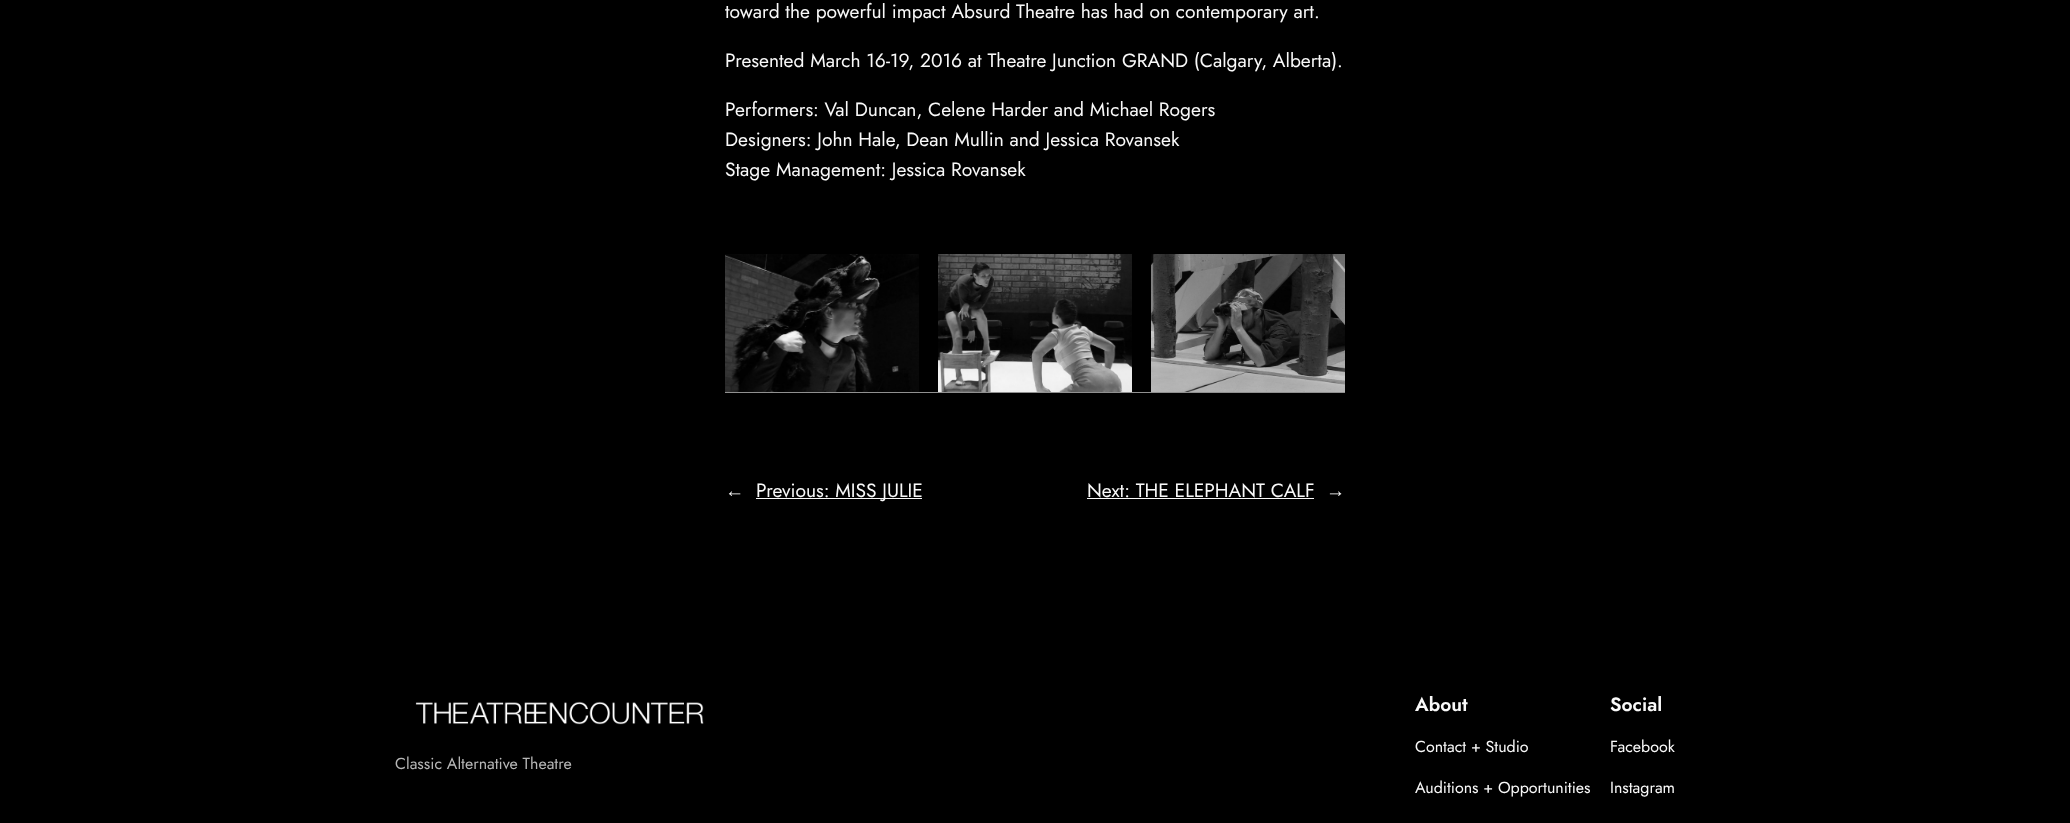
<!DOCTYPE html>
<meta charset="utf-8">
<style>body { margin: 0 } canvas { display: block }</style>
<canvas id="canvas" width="2070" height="823"></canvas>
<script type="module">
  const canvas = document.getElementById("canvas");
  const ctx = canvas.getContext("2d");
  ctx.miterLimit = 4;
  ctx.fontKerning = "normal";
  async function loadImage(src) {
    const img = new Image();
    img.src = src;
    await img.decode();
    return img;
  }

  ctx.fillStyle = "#000000";
  ctx.fillRect(0, 0, 2070, 823);
  ctx.font = "19.2px Jost";
  ctx.fillStyle = "#f9f9f9";
  ctx.fillText("toward the powerful impact Absurd Theatre has had on contemporary art.", 725, 18);
  ctx.fillText("Presented March 16-19, 2016 at Theatre Junction GRAND (Calgary, Alberta).", 725, 67);
  ctx.fillText("Performers: Val Duncan, Celene Harder and Michael Rogers", 725, 116);
  ctx.fillText("Designers: John Hale, Dean Mullin and Jessica Rovansek", 725, 146);
  ctx.fillText("Stage Management: Jessica Rovansek", 725, 176);
  ctx.drawImage(await loadImage("img1.png"), 725, 254, 194, 138);
  ctx.drawImage(await loadImage("img2.png"), 938, 254, 194, 138);
  ctx.drawImage(await loadImage("img3.png"), 1151, 254, 194, 138);
  ctx.fillStyle = "#909090";
  ctx.fillRect(725, 392, 620, 1);
  ctx.font = "19.2px Liberation Sans";
  ctx.fillStyle = "#f9f9f9";
  ctx.fillText("←", 725, 497);
  ctx.fillRect(756, 498, 166, 1);
  ctx.font = "19.2px Jost";
  ctx.fillText("Previous: MISS JULIE", 756, 497);
  ctx.fillText("Next: THE ELEPHANT CALF", 1087, 497);
  ctx.fillRect(1087, 498, 227, 1);
  ctx.font = "19.2px Liberation Sans";
  ctx.fillText("→", 1326, 497);
  ctx.drawImage(await loadImage("img4.png"), 415, 701, 289, 24);
  ctx.font = "16px Jost";
  ctx.fillStyle = "#b7b7b7";
  ctx.fillText("Classic Alternative Theatre", 395, 769);
  ctx.font = "600 19.2px Jost";
  ctx.fillStyle = "#f9f9f9";
  ctx.fillText("About", 1415, 711);
  ctx.font = "16px Jost";
  ctx.fillText("Contact + Studio", 1415, 752);
  ctx.fillText("Auditions + Opportunities", 1415, 793);
  ctx.font = "600 19.2px Jost";
  ctx.fillText("Social", 1610, 711);
  ctx.font = "16px Jost";
  ctx.fillText("Facebook", 1610, 752);
  ctx.fillText("Instagram", 1610, 793);
</script>
